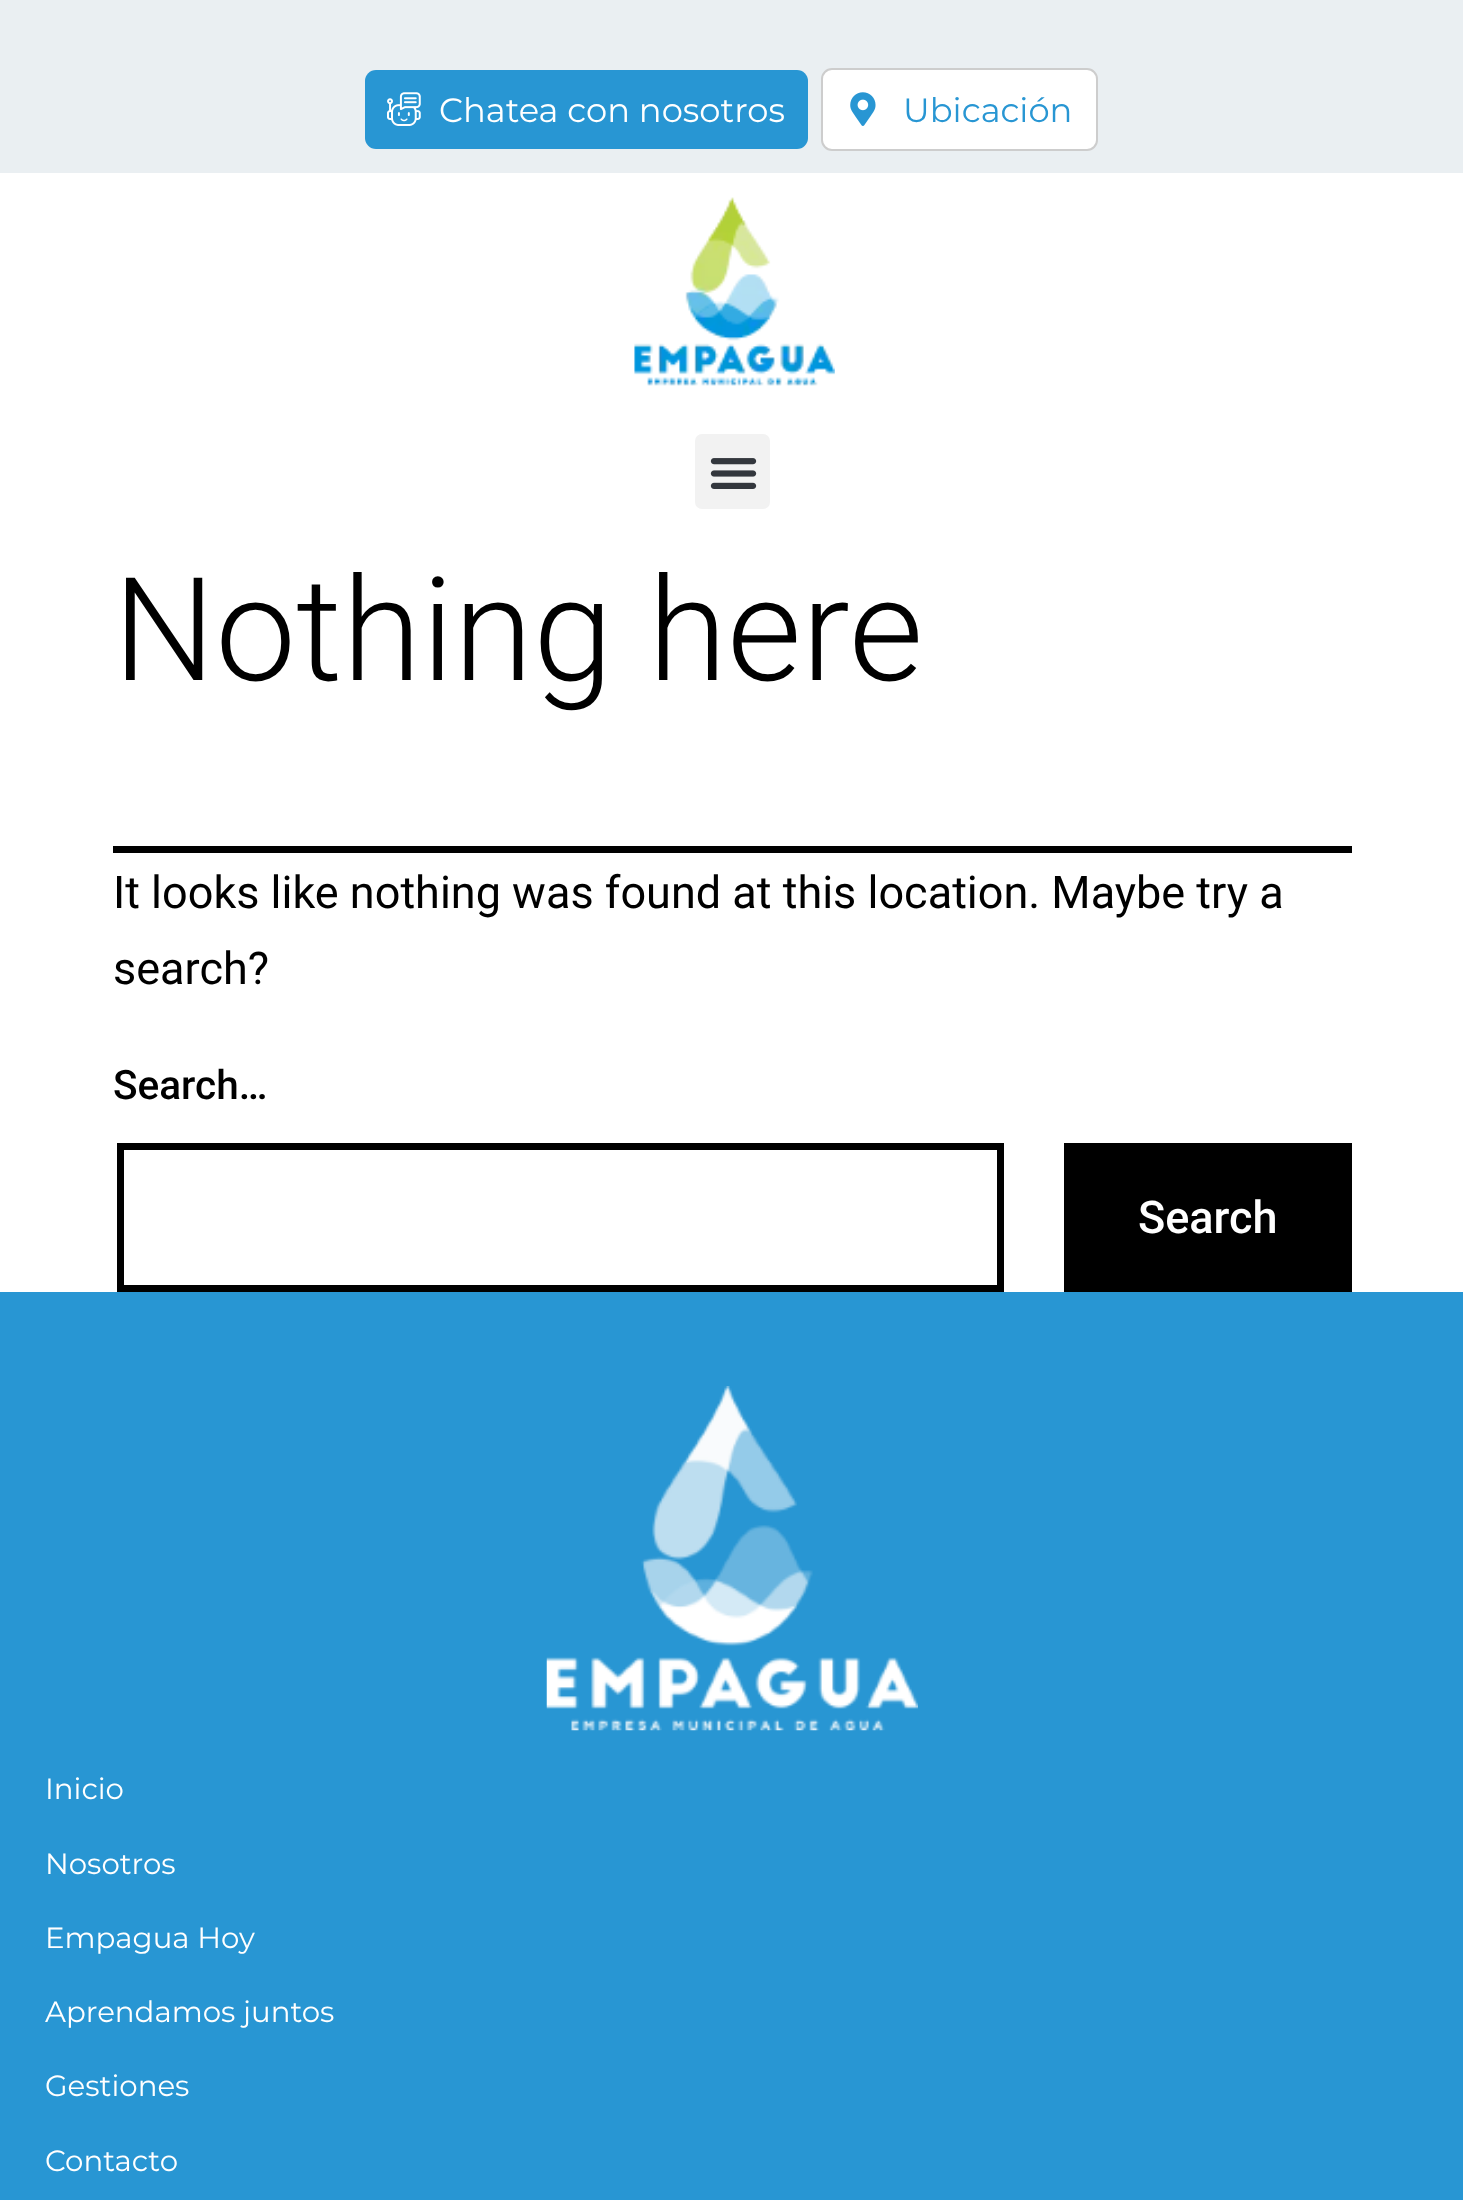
<!DOCTYPE html>
<meta charset="utf-8">
<style>body { margin: 0 } canvas { display: block }</style>
<canvas id="canvas" width="1463" height="2200"></canvas>
<script type="module">
  const canvas = document.getElementById("canvas");
  const ctx = canvas.getContext("2d");
  ctx.miterLimit = 4;
  ctx.fontKerning = "normal";
  async function loadImage(src) {
    const img = new Image();
    img.src = src;
    await img.decode();
    return img;
  }

  ctx.fillStyle = "#ffffff";
  ctx.fillRect(0, 0, 1463, 2200);
  ctx.fillStyle = "#eaeff2";
  ctx.fillRect(0, 0, 1463, 173);
  ctx.fillStyle = "#2896d3";
  ctx.beginPath();
  ctx.roundRect(365, 70, 443, 79, 11);
  ctx.fill();
  ctx.drawImage(await loadImage("img1.png"), 387, 92, 34, 34);
  ctx.font = "33.75px Montserrat";
  ctx.fillStyle = "#ffffff";
  ctx.fillText("Chatea con nosotros", 439, 122);
  ctx.beginPath();
  ctx.roundRect(822, 69, 275, 81, 10);
  ctx.fill();
  ctx.strokeStyle = "#cdcdcd";
  ctx.lineWidth = 2;
  ctx.stroke();
  ctx.drawImage(await loadImage("img2.png"), 850, 92, 26, 34);
  ctx.fillStyle = "#2896d3";
  ctx.fillText("Ubicación", 903, 122);
  ctx.drawImage(await loadImage("img3.png"), 634, 197, 201, 189);
  ctx.fillStyle = "#f2f2f2";
  ctx.beginPath();
  ctx.roundRect(695, 434, 75, 75, 7);
  ctx.fill();
  ctx.drawImage(await loadImage("img4.png"), 710, 458, 47, 31);
  ctx.fillStyle = "#000000";
  ctx.fillRect(113, 846, 1239, 7);
  ctx.font = "300 144px Roboto";
  ctx.fillText("Nothing here", 113, 680);
  ctx.font = "45px Roboto";
  ctx.fillText("It looks like nothing was found at this location. Maybe try a", 113, 908);
  ctx.fillText("search?", 113, 984);
  ctx.font = "500 40.5px Roboto";
  ctx.fillText("Search…", 113, 1099);
  ctx.strokeStyle = "#000000";
  ctx.lineWidth = 7;
  ctx.strokeRect(120.5, 1146.5, 880, 142);
  ctx.fillRect(1064, 1143, 288, 149);
  ctx.font = "500 45px Roboto";
  ctx.fillStyle = "#ffffff";
  ctx.fillText("Search", 1138, 1233);
  ctx.fillStyle = "#2896d3";
  ctx.fillRect(0, 1292, 1463, 908);
  ctx.drawImage(await loadImage("img5.png"), 546, 1386, 372, 345);
  ctx.font = "29.25px Montserrat";
  ctx.fillStyle = "#ffffff";
  ctx.fillText("Inicio", 45, 1799);
  ctx.fillText("Nosotros", 45, 1874);
  ctx.fillText("Empagua Hoy", 45, 1948);
  ctx.fillText("Aprendamos juntos", 45, 2022);
  ctx.fillText("Gestiones", 45, 2096);
  ctx.fillText("Contacto", 45, 2171);
</script>
